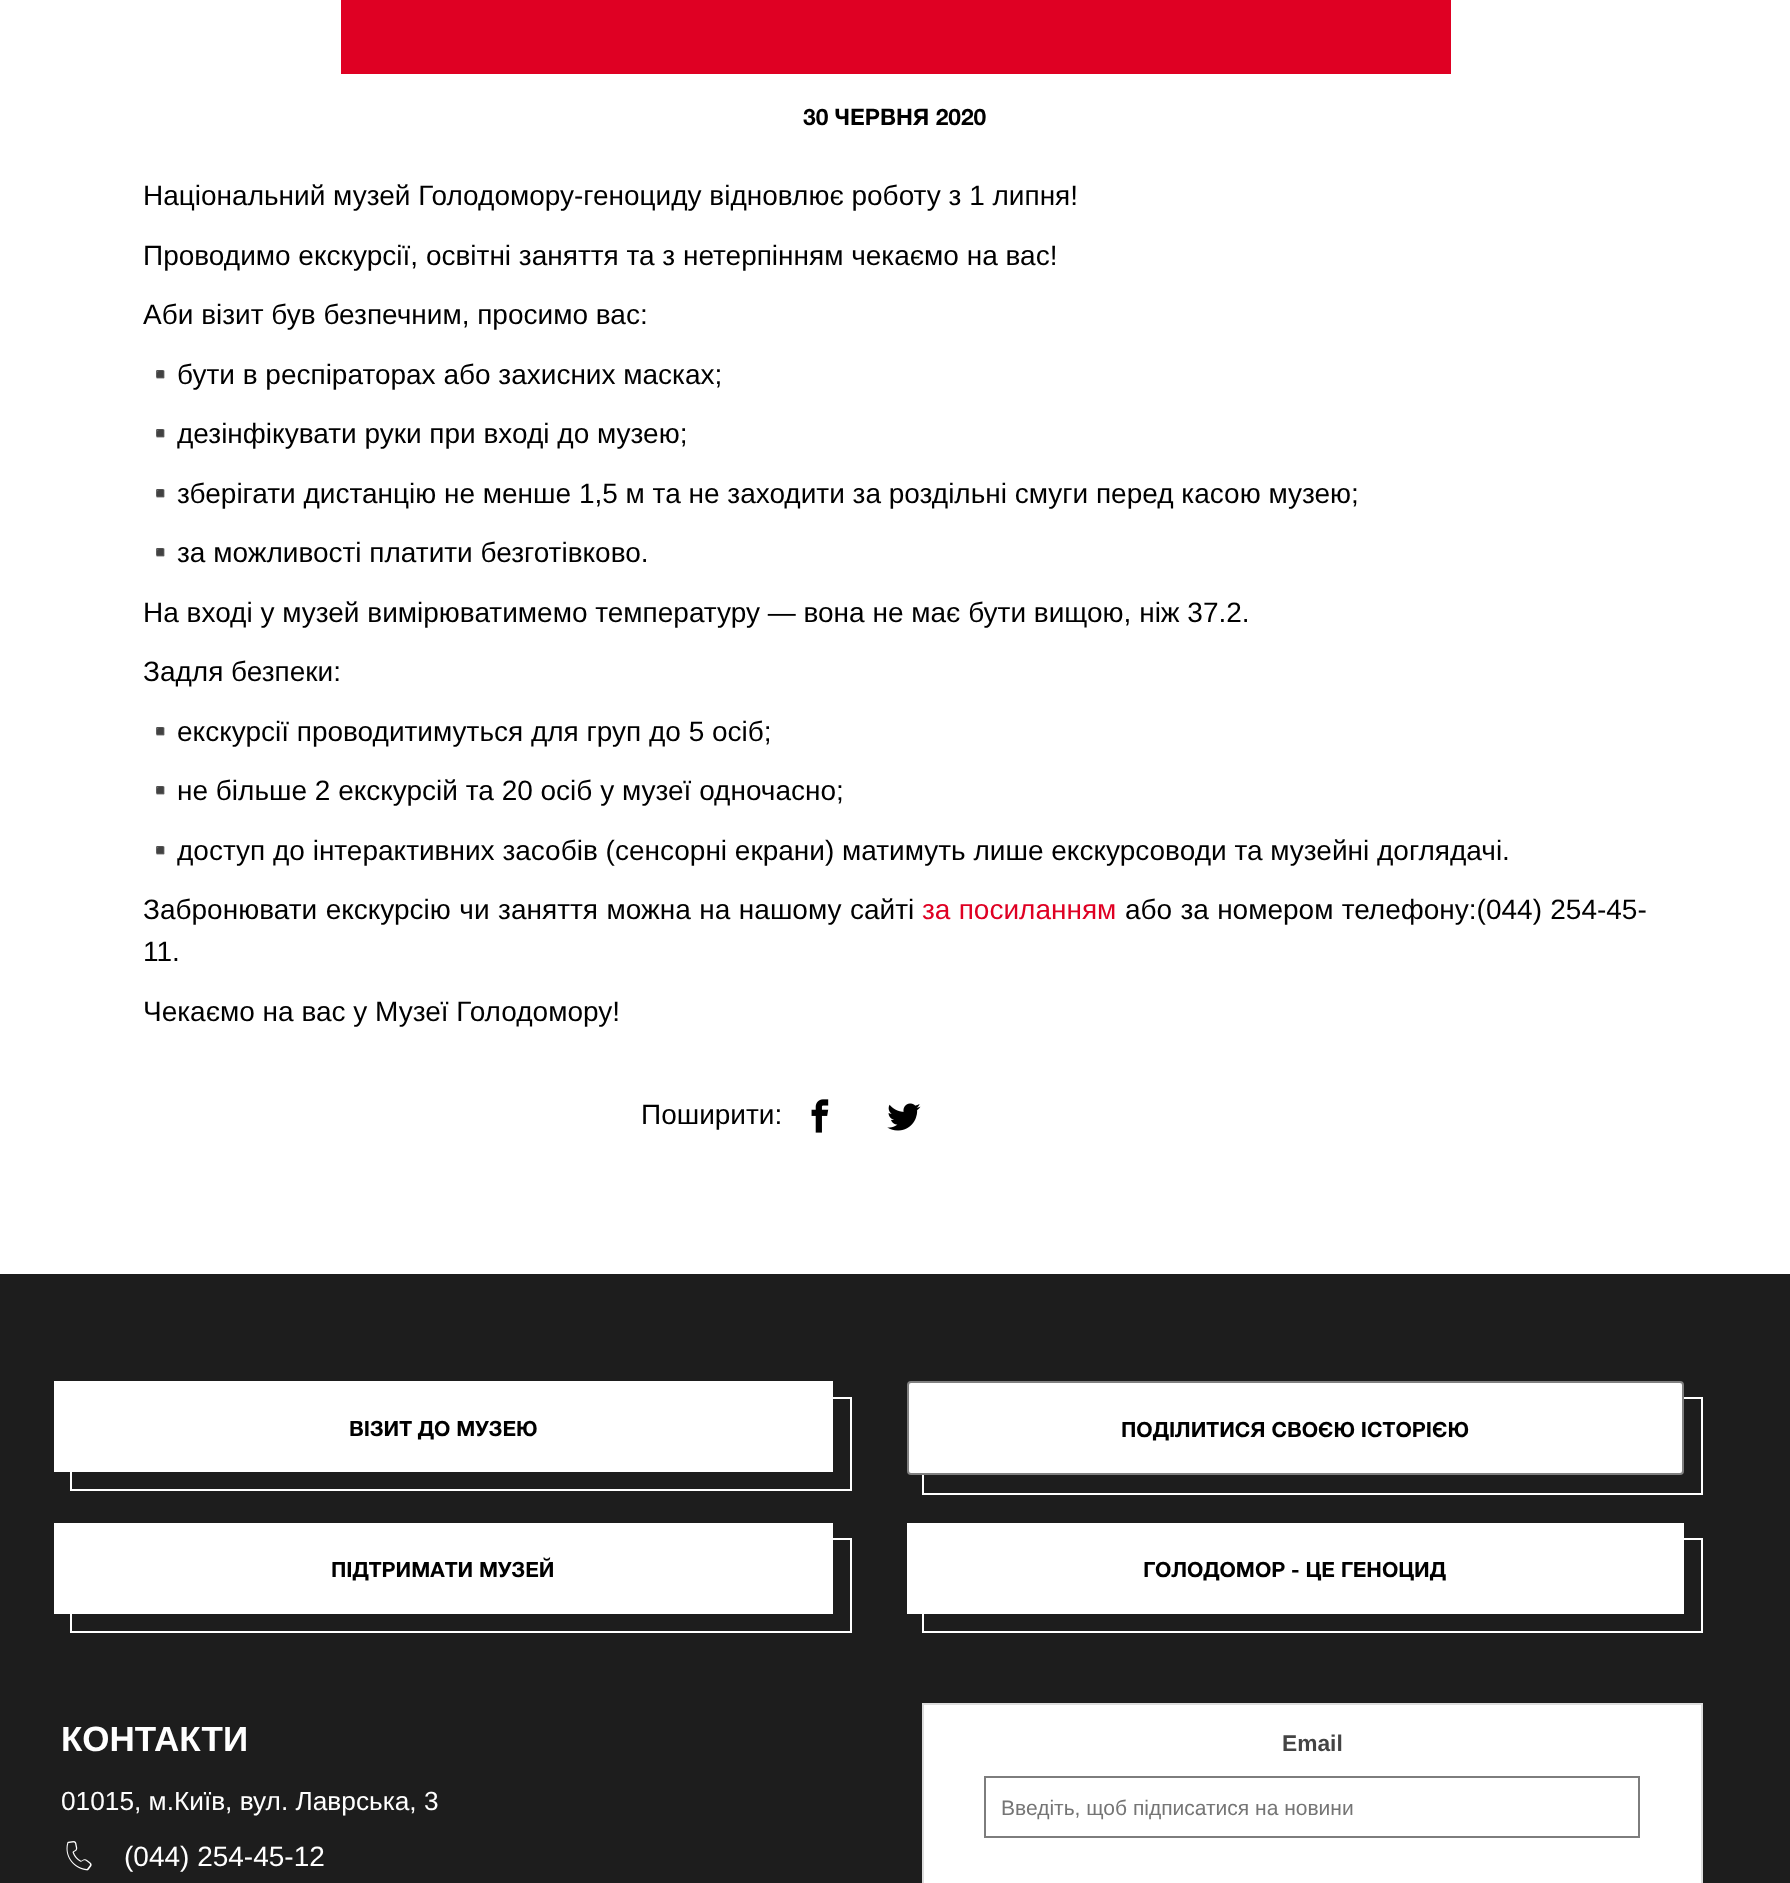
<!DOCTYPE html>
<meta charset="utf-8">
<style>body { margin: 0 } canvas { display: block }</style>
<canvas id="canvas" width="1790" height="1883"></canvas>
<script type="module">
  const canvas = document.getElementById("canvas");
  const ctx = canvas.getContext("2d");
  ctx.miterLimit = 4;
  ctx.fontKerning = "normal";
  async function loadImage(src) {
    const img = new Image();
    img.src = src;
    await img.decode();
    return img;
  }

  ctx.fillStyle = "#1d1d1d";
  ctx.fillRect(0, 0, 1790, 1883);
  ctx.fillStyle = "#ffffff";
  ctx.fillRect(0, 0, 1790, 1274);
  ctx.fillStyle = "#df0023";
  ctx.fillRect(341, 0, 1110, 74);
  ctx.font = "bold 22.75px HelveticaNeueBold";
  ctx.fillStyle = "#000000";
  ctx.fillText("30 ЧЕРВНЯ 2020", 803, 125);
  ctx.font = "28px Liberation Sans";
  ctx.fillText("Національний музей Голодомору-геноциду відновлює роботу з 1 липня!", 143, 205);
  ctx.fillText("Проводимо екскурсії, освітні заняття та з нетерпінням чекаємо на вас!", 143, 265);
  ctx.fillText("Аби візит був безпечним, просимо вас:", 143, 324);
  ctx.font = "28px Noto Color Emoji";
  ctx.fillText("▪️", 143, 384);
  ctx.font = "28px Liberation Sans";
  ctx.fillText("бути в респіраторах або захисних масках;", 177, 384);
  ctx.font = "28px Noto Color Emoji";
  ctx.fillText("▪️", 143, 443);
  ctx.font = "28px Liberation Sans";
  ctx.fillText("дезінфікувати руки при вході до музею;", 177, 443);
  ctx.font = "28px Noto Color Emoji";
  ctx.fillText("▪️", 143, 503);
  ctx.font = "28px Liberation Sans";
  ctx.fillText("зберігати дистанцію не менше 1,5 м та не заходити за роздільні смуги перед касою музею;", 177, 503);
  ctx.font = "28px Noto Color Emoji";
  ctx.fillText("▪️", 143, 562);
  ctx.font = "28px Liberation Sans";
  ctx.fillText("за можливості платити безготівково.", 177, 562);
  ctx.fillText("На вході у музей вимірюватимемо температуру — вона не має бути вищою, ніж 37.2.", 143, 622);
  ctx.fillText("Задля безпеки:", 143, 681);
  ctx.font = "28px Noto Color Emoji";
  ctx.fillText("▪️", 143, 741);
  ctx.font = "28px Liberation Sans";
  ctx.fillText("екскурсії проводитимуться для груп до 5 осіб;", 177, 741);
  ctx.font = "28px Noto Color Emoji";
  ctx.fillText("▪️", 143, 800);
  ctx.font = "28px Liberation Sans";
  ctx.fillText("не більше 2 екскурсій та 20 осіб у музеї одночасно;", 177, 800);
  ctx.font = "28px Noto Color Emoji";
  ctx.fillText("▪️", 143, 860);
  ctx.font = "28px Liberation Sans";
  ctx.fillText("доступ до інтерактивних засобів (сенсорні екрани) матимуть лише екскурсоводи та музейні доглядачі.", 177, 860);
  ctx.wordSpacing = "0.75px";
  ctx.fillText("Забронювати екскурсію чи заняття можна на нашому сайті", 143, 919);
  ctx.wordSpacing = "0.5px";
  ctx.fillStyle = "#df0023";
  ctx.fillText("за посиланням", 922, 919);
  ctx.fillStyle = "#000000";
  ctx.fillText("або за номером телефону:(044) 254-45-", 1125, 919);
  ctx.wordSpacing = "0px";
  ctx.fillText("11.", 143, 961);
  ctx.fillText("Чекаємо на вас у Музеї Голодомору!", 143, 1021);
  ctx.fillText("Поширити:", 641, 1124);
  ctx.drawImage(await loadImage("img1.png"), 811, 1099, 18, 34);
  ctx.drawImage(await loadImage("img2.png"), 887, 1103, 34, 28);
  ctx.strokeStyle = "#ffffff";
  ctx.lineWidth = 2;
  ctx.strokeRect(71, 1398, 780, 92);
  ctx.fillStyle = "#ffffff";
  ctx.fillRect(54, 1381, 779, 91);
  ctx.font = "bold 21px HelveticaNeueBold";
  ctx.fillStyle = "#000000";
  ctx.fillText("ВІЗИТ ДО МУЗЕЮ", 349, 1436);
  ctx.strokeRect(923, 1398, 779, 96);
  ctx.fillStyle = "#ffffff";
  ctx.beginPath();
  ctx.roundRect(908, 1382, 775, 92, 3);
  ctx.fill();
  ctx.strokeStyle = "#808080";
  ctx.stroke();
  ctx.fillStyle = "#000000";
  ctx.fillText("ПОДІЛИТИСЯ СВОЄЮ ІСТОРІЄЮ", 1121, 1437);
  ctx.strokeStyle = "#ffffff";
  ctx.strokeRect(71, 1539, 780, 93);
  ctx.fillStyle = "#ffffff";
  ctx.fillRect(54, 1523, 779, 91);
  ctx.fillStyle = "#000000";
  ctx.fillText("ПІДТРИМАТИ МУЗЕЙ", 331, 1577);
  ctx.strokeRect(923, 1539, 779, 93);
  ctx.fillStyle = "#ffffff";
  ctx.fillRect(907, 1523, 777, 91);
  ctx.fillStyle = "#000000";
  ctx.fillText("ГОЛОДОМОР - ЦЕ ГЕНОЦИД", 1143, 1577);
  ctx.font = "bold 35px Liberation Sans";
  ctx.fillStyle = "#ffffff";
  ctx.fillText("КОНТАКТИ", 61, 1751);
  ctx.font = "26.25px Liberation Sans";
  ctx.fillText("01015, м.Київ, вул. Лаврська, 3", 61, 1810);
  ctx.drawImage(await loadImage("img3.png"), 66, 1841, 26, 30);
  ctx.font = "28px Liberation Sans";
  ctx.fillText("(044) 254-45-12", 124, 1866);
  ctx.beginPath();
  ctx.rect(923, 1704, 779, 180);
  ctx.fill();
  ctx.strokeStyle = "#dddddd";
  ctx.stroke();
  ctx.font = "bold 22.75px Liberation Sans";
  ctx.fillStyle = "#444444";
  ctx.fillText("Email", 1282, 1751);
  ctx.strokeStyle = "#7d7d7d";
  ctx.strokeRect(985, 1777, 654, 60);
  ctx.font = "21px Liberation Sans";
  ctx.fillStyle = "#757575";
  ctx.fillText("Введіть, щоб підписатися на новини", 1001, 1815);
</script>
